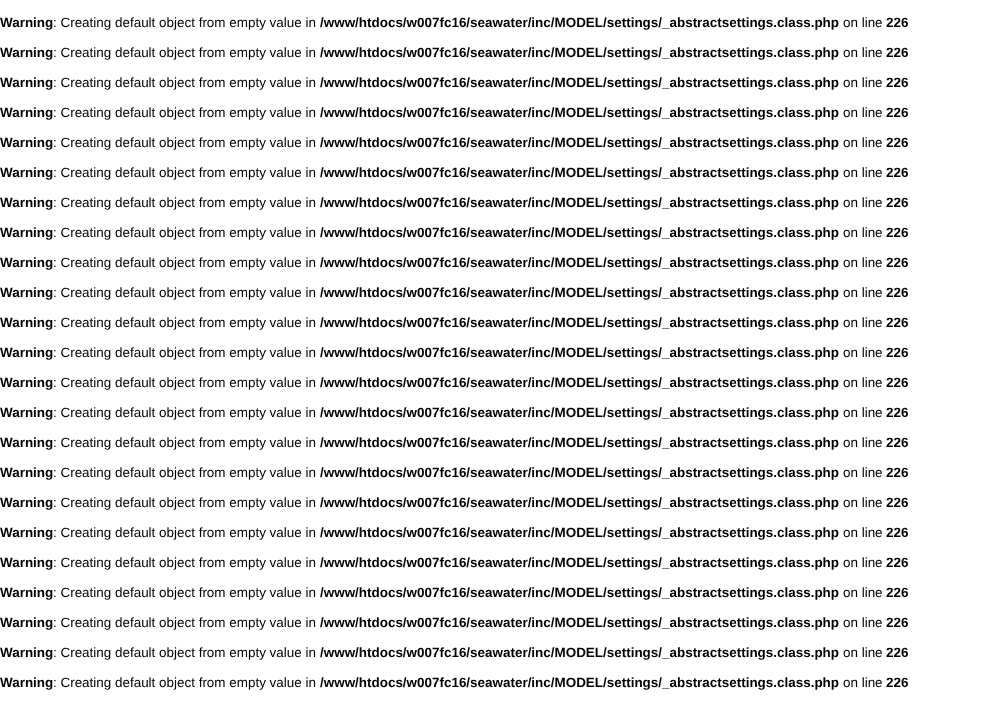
<!DOCTYPE html>
<meta charset="utf-8">
<style>body { margin: 0 } canvas { display: block }</style>
<canvas id="canvas" width="999" height="703"></canvas>
<script type="module">
  const canvas = document.getElementById("canvas");
  const ctx = canvas.getContext("2d");
  ctx.miterLimit = 4;
  ctx.fontKerning = "normal";

  ctx.fillStyle = "#ffffff";
  ctx.fillRect(0, 0, 999, 703);
  ctx.font = "bold 13.45px Liberation Sans";
  ctx.fillStyle = "#000000";
  ctx.fillText("Warning", 0, 27);
  ctx.font = "13.45px Liberation Sans";
  ctx.fillText(": Creating default object from empty value in", 53, 27);
  ctx.font = "bold 13.45px Liberation Sans";
  ctx.fillText("/www/htdocs/w007fc16/seawater/inc/MODEL/settings/_abstractsettings.class.php", 320, 27);
  ctx.font = "13.45px Liberation Sans";
  ctx.fillText("on line", 843, 27);
  ctx.font = "bold 13.45px Liberation Sans";
  ctx.fillText("226", 886, 27);
  ctx.fillText("Warning", 0, 57);
  ctx.font = "13.45px Liberation Sans";
  ctx.fillText(": Creating default object from empty value in", 53, 57);
  ctx.font = "bold 13.45px Liberation Sans";
  ctx.fillText("/www/htdocs/w007fc16/seawater/inc/MODEL/settings/_abstractsettings.class.php", 320, 57);
  ctx.font = "13.45px Liberation Sans";
  ctx.fillText("on line", 843, 57);
  ctx.font = "bold 13.45px Liberation Sans";
  ctx.fillText("226", 886, 57);
  ctx.fillText("Warning", 0, 87);
  ctx.font = "13.45px Liberation Sans";
  ctx.fillText(": Creating default object from empty value in", 53, 87);
  ctx.font = "bold 13.45px Liberation Sans";
  ctx.fillText("/www/htdocs/w007fc16/seawater/inc/MODEL/settings/_abstractsettings.class.php", 320, 87);
  ctx.font = "13.45px Liberation Sans";
  ctx.fillText("on line", 843, 87);
  ctx.font = "bold 13.45px Liberation Sans";
  ctx.fillText("226", 886, 87);
  ctx.fillText("Warning", 0, 117);
  ctx.font = "13.45px Liberation Sans";
  ctx.fillText(": Creating default object from empty value in", 53, 117);
  ctx.font = "bold 13.45px Liberation Sans";
  ctx.fillText("/www/htdocs/w007fc16/seawater/inc/MODEL/settings/_abstractsettings.class.php", 320, 117);
  ctx.font = "13.45px Liberation Sans";
  ctx.fillText("on line", 843, 117);
  ctx.font = "bold 13.45px Liberation Sans";
  ctx.fillText("226", 886, 117);
  ctx.fillText("Warning", 0, 147);
  ctx.font = "13.45px Liberation Sans";
  ctx.fillText(": Creating default object from empty value in", 53, 147);
  ctx.font = "bold 13.45px Liberation Sans";
  ctx.fillText("/www/htdocs/w007fc16/seawater/inc/MODEL/settings/_abstractsettings.class.php", 320, 147);
  ctx.font = "13.45px Liberation Sans";
  ctx.fillText("on line", 843, 147);
  ctx.font = "bold 13.45px Liberation Sans";
  ctx.fillText("226", 886, 147);
  ctx.fillText("Warning", 0, 177);
  ctx.font = "13.45px Liberation Sans";
  ctx.fillText(": Creating default object from empty value in", 53, 177);
  ctx.font = "bold 13.45px Liberation Sans";
  ctx.fillText("/www/htdocs/w007fc16/seawater/inc/MODEL/settings/_abstractsettings.class.php", 320, 177);
  ctx.font = "13.45px Liberation Sans";
  ctx.fillText("on line", 843, 177);
  ctx.font = "bold 13.45px Liberation Sans";
  ctx.fillText("226", 886, 177);
  ctx.fillText("Warning", 0, 207);
  ctx.font = "13.45px Liberation Sans";
  ctx.fillText(": Creating default object from empty value in", 53, 207);
  ctx.font = "bold 13.45px Liberation Sans";
  ctx.fillText("/www/htdocs/w007fc16/seawater/inc/MODEL/settings/_abstractsettings.class.php", 320, 207);
  ctx.font = "13.45px Liberation Sans";
  ctx.fillText("on line", 843, 207);
  ctx.font = "bold 13.45px Liberation Sans";
  ctx.fillText("226", 886, 207);
  ctx.fillText("Warning", 0, 237);
  ctx.font = "13.45px Liberation Sans";
  ctx.fillText(": Creating default object from empty value in", 53, 237);
  ctx.font = "bold 13.45px Liberation Sans";
  ctx.fillText("/www/htdocs/w007fc16/seawater/inc/MODEL/settings/_abstractsettings.class.php", 320, 237);
  ctx.font = "13.45px Liberation Sans";
  ctx.fillText("on line", 843, 237);
  ctx.font = "bold 13.45px Liberation Sans";
  ctx.fillText("226", 886, 237);
  ctx.fillText("Warning", 0, 267);
  ctx.font = "13.45px Liberation Sans";
  ctx.fillText(": Creating default object from empty value in", 53, 267);
  ctx.font = "bold 13.45px Liberation Sans";
  ctx.fillText("/www/htdocs/w007fc16/seawater/inc/MODEL/settings/_abstractsettings.class.php", 320, 267);
  ctx.font = "13.45px Liberation Sans";
  ctx.fillText("on line", 843, 267);
  ctx.font = "bold 13.45px Liberation Sans";
  ctx.fillText("226", 886, 267);
  ctx.fillText("Warning", 0, 297);
  ctx.font = "13.45px Liberation Sans";
  ctx.fillText(": Creating default object from empty value in", 53, 297);
  ctx.font = "bold 13.45px Liberation Sans";
  ctx.fillText("/www/htdocs/w007fc16/seawater/inc/MODEL/settings/_abstractsettings.class.php", 320, 297);
  ctx.font = "13.45px Liberation Sans";
  ctx.fillText("on line", 843, 297);
  ctx.font = "bold 13.45px Liberation Sans";
  ctx.fillText("226", 886, 297);
  ctx.fillText("Warning", 0, 327);
  ctx.font = "13.45px Liberation Sans";
  ctx.fillText(": Creating default object from empty value in", 53, 327);
  ctx.font = "bold 13.45px Liberation Sans";
  ctx.fillText("/www/htdocs/w007fc16/seawater/inc/MODEL/settings/_abstractsettings.class.php", 320, 327);
  ctx.font = "13.45px Liberation Sans";
  ctx.fillText("on line", 843, 327);
  ctx.font = "bold 13.45px Liberation Sans";
  ctx.fillText("226", 886, 327);
  ctx.fillText("Warning", 0, 357);
  ctx.font = "13.45px Liberation Sans";
  ctx.fillText(": Creating default object from empty value in", 53, 357);
  ctx.font = "bold 13.45px Liberation Sans";
  ctx.fillText("/www/htdocs/w007fc16/seawater/inc/MODEL/settings/_abstractsettings.class.php", 320, 357);
  ctx.font = "13.45px Liberation Sans";
  ctx.fillText("on line", 843, 357);
  ctx.font = "bold 13.45px Liberation Sans";
  ctx.fillText("226", 886, 357);
  ctx.fillText("Warning", 0, 387);
  ctx.font = "13.45px Liberation Sans";
  ctx.fillText(": Creating default object from empty value in", 53, 387);
  ctx.font = "bold 13.45px Liberation Sans";
  ctx.fillText("/www/htdocs/w007fc16/seawater/inc/MODEL/settings/_abstractsettings.class.php", 320, 387);
  ctx.font = "13.45px Liberation Sans";
  ctx.fillText("on line", 843, 387);
  ctx.font = "bold 13.45px Liberation Sans";
  ctx.fillText("226", 886, 387);
  ctx.fillText("Warning", 0, 417);
  ctx.font = "13.45px Liberation Sans";
  ctx.fillText(": Creating default object from empty value in", 53, 417);
  ctx.font = "bold 13.45px Liberation Sans";
  ctx.fillText("/www/htdocs/w007fc16/seawater/inc/MODEL/settings/_abstractsettings.class.php", 320, 417);
  ctx.font = "13.45px Liberation Sans";
  ctx.fillText("on line", 843, 417);
  ctx.font = "bold 13.45px Liberation Sans";
  ctx.fillText("226", 886, 417);
  ctx.fillText("Warning", 0, 447);
  ctx.font = "13.45px Liberation Sans";
  ctx.fillText(": Creating default object from empty value in", 53, 447);
  ctx.font = "bold 13.45px Liberation Sans";
  ctx.fillText("/www/htdocs/w007fc16/seawater/inc/MODEL/settings/_abstractsettings.class.php", 320, 447);
  ctx.font = "13.45px Liberation Sans";
  ctx.fillText("on line", 843, 447);
  ctx.font = "bold 13.45px Liberation Sans";
  ctx.fillText("226", 886, 447);
  ctx.fillText("Warning", 0, 477);
  ctx.font = "13.45px Liberation Sans";
  ctx.fillText(": Creating default object from empty value in", 53, 477);
  ctx.font = "bold 13.45px Liberation Sans";
  ctx.fillText("/www/htdocs/w007fc16/seawater/inc/MODEL/settings/_abstractsettings.class.php", 320, 477);
  ctx.font = "13.45px Liberation Sans";
  ctx.fillText("on line", 843, 477);
  ctx.font = "bold 13.45px Liberation Sans";
  ctx.fillText("226", 886, 477);
  ctx.fillText("Warning", 0, 507);
  ctx.font = "13.45px Liberation Sans";
  ctx.fillText(": Creating default object from empty value in", 53, 507);
  ctx.font = "bold 13.45px Liberation Sans";
  ctx.fillText("/www/htdocs/w007fc16/seawater/inc/MODEL/settings/_abstractsettings.class.php", 320, 507);
  ctx.font = "13.45px Liberation Sans";
  ctx.fillText("on line", 843, 507);
  ctx.font = "bold 13.45px Liberation Sans";
  ctx.fillText("226", 886, 507);
  ctx.fillText("Warning", 0, 537);
  ctx.font = "13.45px Liberation Sans";
  ctx.fillText(": Creating default object from empty value in", 53, 537);
  ctx.font = "bold 13.45px Liberation Sans";
  ctx.fillText("/www/htdocs/w007fc16/seawater/inc/MODEL/settings/_abstractsettings.class.php", 320, 537);
  ctx.font = "13.45px Liberation Sans";
  ctx.fillText("on line", 843, 537);
  ctx.font = "bold 13.45px Liberation Sans";
  ctx.fillText("226", 886, 537);
  ctx.fillText("Warning", 0, 567);
  ctx.font = "13.45px Liberation Sans";
  ctx.fillText(": Creating default object from empty value in", 53, 567);
  ctx.font = "bold 13.45px Liberation Sans";
  ctx.fillText("/www/htdocs/w007fc16/seawater/inc/MODEL/settings/_abstractsettings.class.php", 320, 567);
  ctx.font = "13.45px Liberation Sans";
  ctx.fillText("on line", 843, 567);
  ctx.font = "bold 13.45px Liberation Sans";
  ctx.fillText("226", 886, 567);
  ctx.fillText("Warning", 0, 597);
  ctx.font = "13.45px Liberation Sans";
  ctx.fillText(": Creating default object from empty value in", 53, 597);
  ctx.font = "bold 13.45px Liberation Sans";
  ctx.fillText("/www/htdocs/w007fc16/seawater/inc/MODEL/settings/_abstractsettings.class.php", 320, 597);
  ctx.font = "13.45px Liberation Sans";
  ctx.fillText("on line", 843, 597);
  ctx.font = "bold 13.45px Liberation Sans";
  ctx.fillText("226", 886, 597);
  ctx.fillText("Warning", 0, 627);
  ctx.font = "13.45px Liberation Sans";
  ctx.fillText(": Creating default object from empty value in", 53, 627);
  ctx.font = "bold 13.45px Liberation Sans";
  ctx.fillText("/www/htdocs/w007fc16/seawater/inc/MODEL/settings/_abstractsettings.class.php", 320, 627);
  ctx.font = "13.45px Liberation Sans";
  ctx.fillText("on line", 843, 627);
  ctx.font = "bold 13.45px Liberation Sans";
  ctx.fillText("226", 886, 627);
  ctx.fillText("Warning", 0, 657);
  ctx.font = "13.45px Liberation Sans";
  ctx.fillText(": Creating default object from empty value in", 53, 657);
  ctx.font = "bold 13.45px Liberation Sans";
  ctx.fillText("/www/htdocs/w007fc16/seawater/inc/MODEL/settings/_abstractsettings.class.php", 320, 657);
  ctx.font = "13.45px Liberation Sans";
  ctx.fillText("on line", 843, 657);
  ctx.font = "bold 13.45px Liberation Sans";
  ctx.fillText("226", 886, 657);
  ctx.fillText("Warning", 0, 687);
  ctx.font = "13.45px Liberation Sans";
  ctx.fillText(": Creating default object from empty value in", 53, 687);
  ctx.font = "bold 13.45px Liberation Sans";
  ctx.fillText("/www/htdocs/w007fc16/seawater/inc/MODEL/settings/_abstractsettings.class.php", 320, 687);
  ctx.font = "13.45px Liberation Sans";
  ctx.fillText("on line", 843, 687);
  ctx.font = "bold 13.45px Liberation Sans";
  ctx.fillText("226", 886, 687);
</script>
